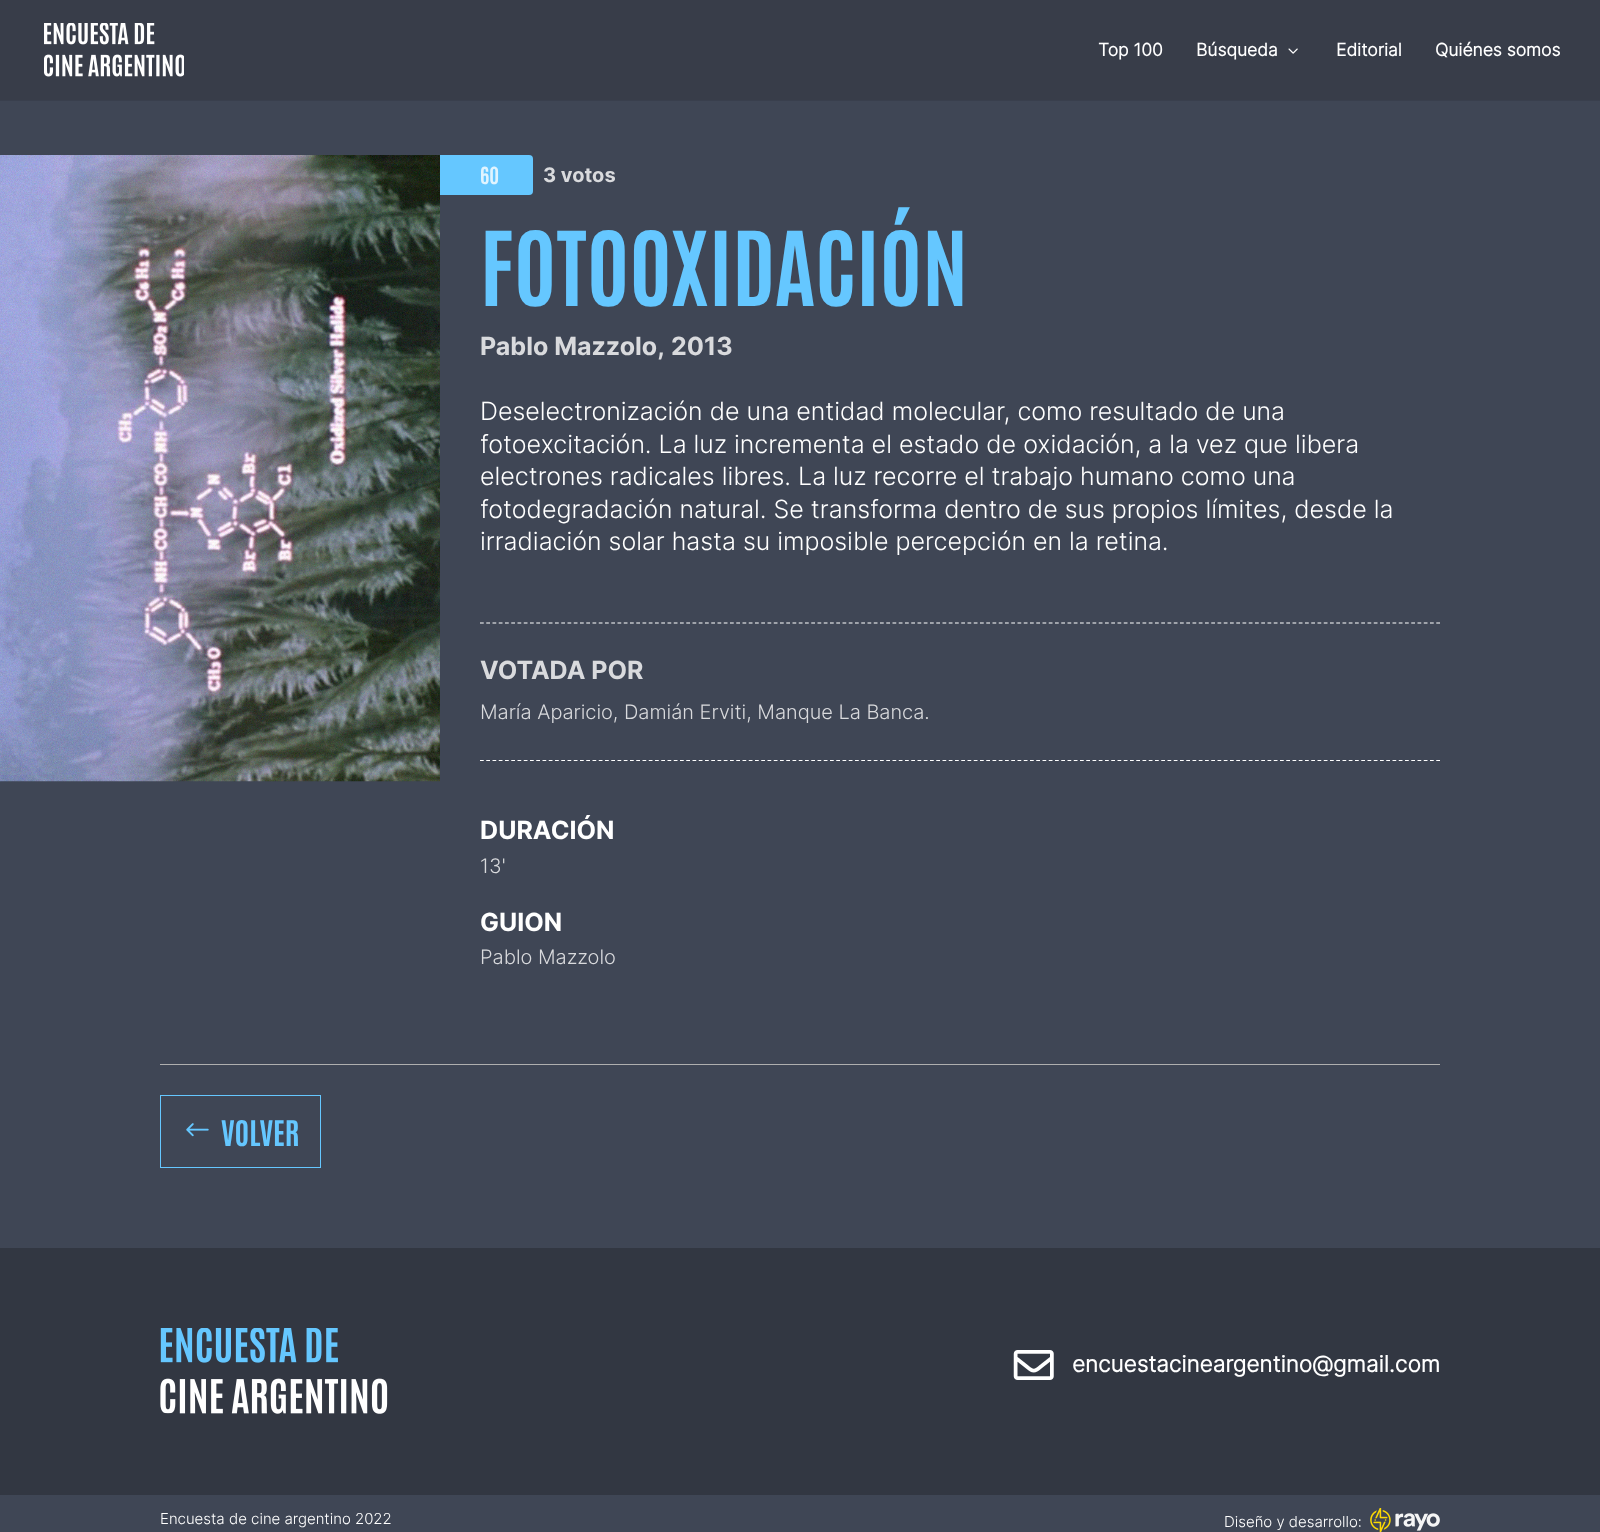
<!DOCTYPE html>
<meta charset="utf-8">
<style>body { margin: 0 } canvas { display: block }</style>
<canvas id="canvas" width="1600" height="1532"></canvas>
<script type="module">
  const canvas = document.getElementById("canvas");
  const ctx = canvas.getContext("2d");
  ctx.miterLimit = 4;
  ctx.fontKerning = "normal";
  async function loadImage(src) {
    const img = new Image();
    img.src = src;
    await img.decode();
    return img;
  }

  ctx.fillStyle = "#3f4655";
  ctx.fillRect(0, 0, 1600, 1532);
  ctx.fillStyle = "#393f4d";
  ctx.fillRect(0, 100, 1600, 1);
  ctx.fillStyle = "#383d49";
  ctx.fillRect(0, 0, 1600, 100);
  ctx.drawImage(await loadImage("img1.png"), 44, 23, 140, 54);
  ctx.font = "bold 17.5px 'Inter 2'";
  ctx.fillStyle = "#ffffff";
  ctx.fillText("Top 100", 1098, 56);
  ctx.fillText("Búsqueda", 1196, 56);
  ctx.drawImage(await loadImage("img2.png"), 1288, 48, 10, 6);
  ctx.fillText("Editorial", 1336, 56);
  ctx.fillText("Quiénes somos", 1435, 56);
  ctx.drawImage(await loadImage("img3.png"), 0, 155, 440, 627);
  ctx.fillStyle = "#65c7ff";
  ctx.beginPath();
  ctx.roundRect(440, 155, 93, 40, [0, 4, 4, 0]);
  ctx.fill();
  ctx.font = "bold 20px Antonio";
  ctx.fillStyle = "#e0f4ff";
  ctx.fillText("60", 480, 184);
  ctx.font = "bold 20px Inter";
  ctx.fillStyle = "#d9dadd";
  ctx.fillText("3 votos", 543, 182);
  ctx.font = "bold 87.5px Antonio";
  ctx.fillStyle = "#65c7ff";
  ctx.fillText("FOTOOXIDACIÓN", 480, 306);
  ctx.font = "bold 25px Inter";
  ctx.fillStyle = "#d9dadd";
  ctx.fillText("Pablo Mazzolo,", 480, 355);
  ctx.fillText("2013", 671, 355);
  ctx.font = "300 25px Inter";
  ctx.fillStyle = "#ffffff";
  ctx.fillText("Deselectronización de una entidad molecular, como resultado de una", 480, 420);
  ctx.fillText("fotoexcitación. La luz incrementa el estado de oxidación, a la vez que libera", 480, 453);
  ctx.fillText("electrones radicales libres. La luz recorre el trabajo humano como una", 480, 485);
  ctx.fillText("fotodegradación natural. Se transforma dentro de sus propios límites, desde la", 480, 518);
  ctx.fillText("irradiación solar hasta su imposible percepción en la retina.", 480, 550);
  ctx.beginPath();
  ctx.moveTo(480, 623);
  ctx.lineTo(1440, 623);
  ctx.strokeStyle = "#ffffff";
  ctx.lineWidth = 1.2;
  ctx.setLineDash([3.75, 2.5]);
  ctx.stroke();
  ctx.font = "bold 25px Inter";
  ctx.fillStyle = "#d9dadd";
  ctx.fillText("VOTADA POR", 480, 679);
  ctx.font = "300 20px Inter";
  ctx.fillText("María Aparicio, Damián Erviti, Manque La Banca.", 480, 719);
  ctx.beginPath();
  ctx.moveTo(480, 760.5);
  ctx.lineTo(1440, 760.5);
  ctx.stroke();
  ctx.font = "bold 25px Inter";
  ctx.fillStyle = "#ffffff";
  ctx.fillText("DURACIÓN", 480, 839);
  ctx.font = "300 20px Inter";
  ctx.fillStyle = "#d9dadd";
  ctx.fillText("13'", 480, 873);
  ctx.font = "bold 25px Inter";
  ctx.fillStyle = "#ffffff";
  ctx.fillText("GUION", 480, 931);
  ctx.font = "300 20px Inter";
  ctx.fillStyle = "#d9dadd";
  ctx.fillText("Pablo Mazzolo", 480, 964);
  ctx.fillStyle = "#afafaf";
  ctx.fillRect(160, 1064, 1280, 1);
  ctx.strokeStyle = "#65c7ff";
  ctx.lineWidth = 1;
  ctx.setLineDash([]);
  ctx.strokeRect(160.5, 1095.5, 160, 72);
  ctx.drawImage(await loadImage("img4.png"), 186, 1123, 23, 14);
  ctx.font = "bold 30px Antonio";
  ctx.fillStyle = "#65c7ff";
  ctx.fillText("VOLVER", 221, 1146);
  ctx.fillStyle = "#323742";
  ctx.fillRect(0, 1248, 1600, 247);
  ctx.drawImage(await loadImage("img5.png"), 160, 1328, 228, 86);
  ctx.drawImage(await loadImage("img6.png"), 1013, 1350, 41, 30);
  ctx.font = "bold 22.5px 'Inter 2'";
  ctx.fillStyle = "#ffffff";
  ctx.fillText("encuestacineargentino@gmail.com", 1072, 1372);
  ctx.font = "300 15px Inter";
  ctx.fillText("Encuesta de cine argentino 2022", 160, 1524);
  ctx.fillText("Diseño y desarrollo:", 1224, 1527);
  ctx.drawImage(await loadImage("img7.png"), 1370, 1508, 70, 24);
</script>
